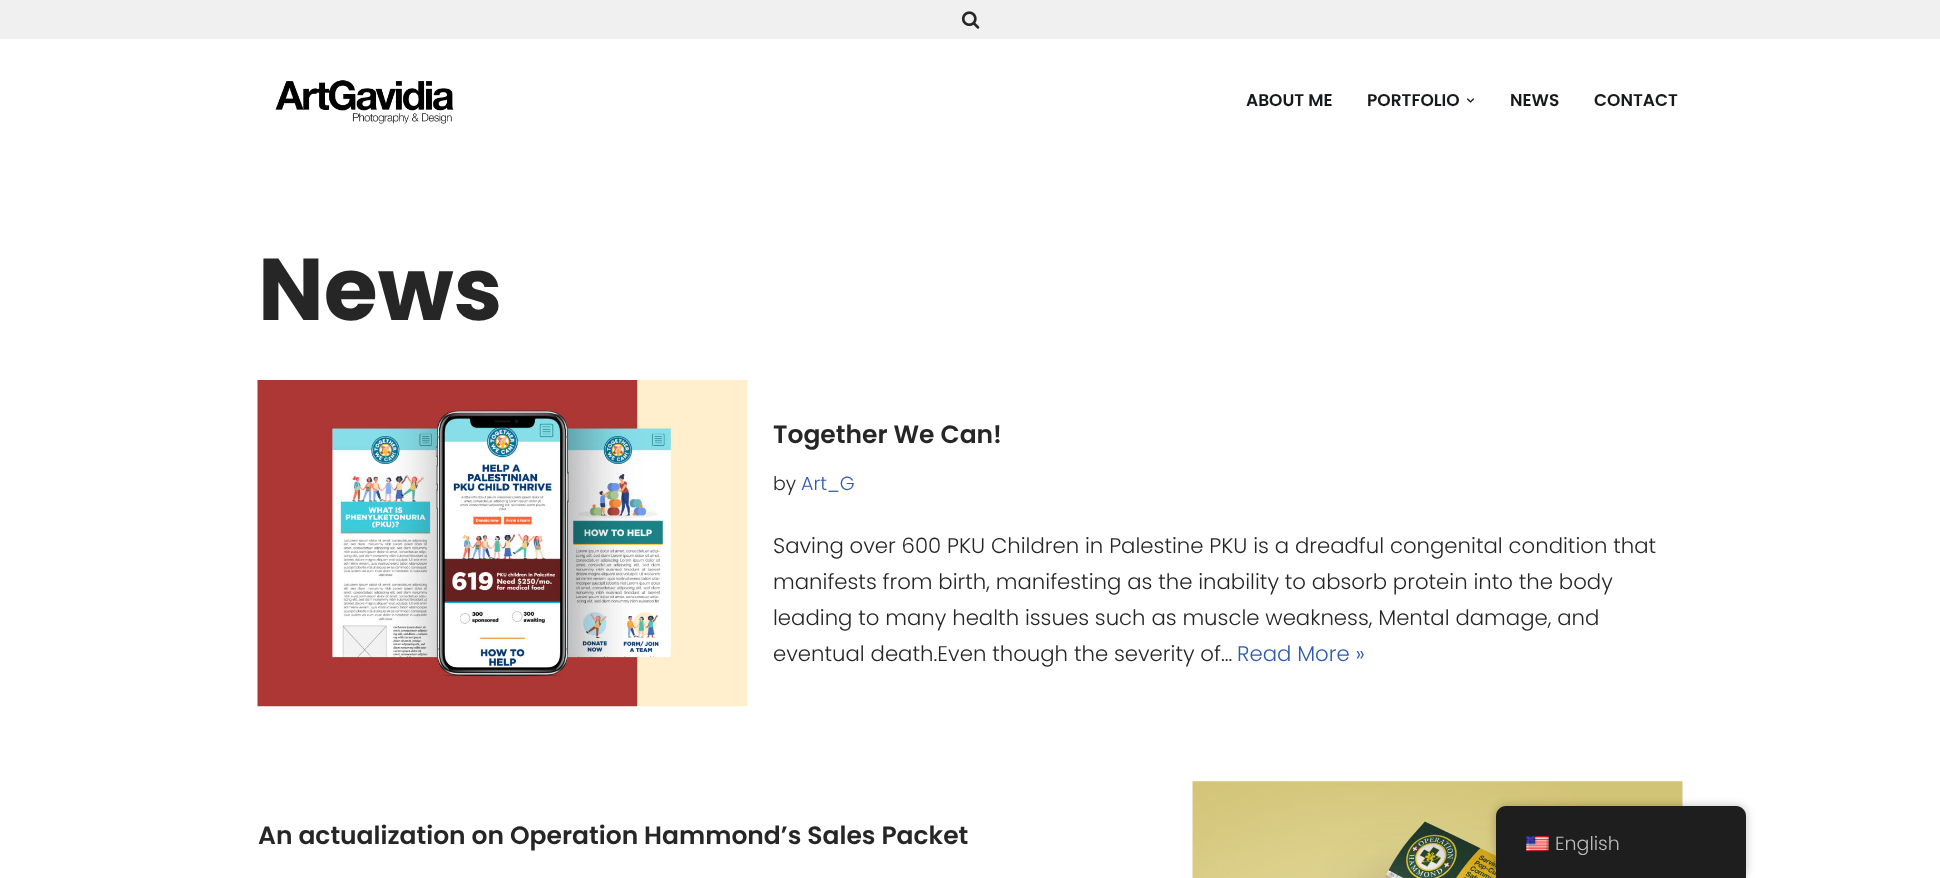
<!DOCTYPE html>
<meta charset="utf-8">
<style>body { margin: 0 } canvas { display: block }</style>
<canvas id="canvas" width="1940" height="878"></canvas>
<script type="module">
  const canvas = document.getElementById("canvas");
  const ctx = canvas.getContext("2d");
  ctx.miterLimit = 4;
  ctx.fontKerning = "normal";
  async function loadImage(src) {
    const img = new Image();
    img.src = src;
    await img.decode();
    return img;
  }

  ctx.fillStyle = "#ffffff";
  ctx.fillRect(0, 0, 1940, 878);
  ctx.fillStyle = "#f0f0f0";
  ctx.fillRect(0, 0, 1940, 39);
  ctx.drawImage(await loadImage("img1.png"), 961, 11, 19, 18);
  ctx.drawImage(await loadImage("img2.png"), 275, 80, 179, 44);
  ctx.font = "600 17px Poppins";
  ctx.fillStyle = "#18191d";
  ctx.fillText("ABOUT ME", 1246, 106);
  ctx.fillText("PORTFOLIO", 1367, 106);
  ctx.drawImage(await loadImage("img3.png"), 1466, 98, 9, 5);
  ctx.fillText("NEWS", 1510, 106);
  ctx.fillText("CONTACT", 1594, 106);
  ctx.font = "bold 87.5px Poppins";
  ctx.fillStyle = "#272626";
  ctx.fillText("News", 258, 320);
  ctx.drawImage(await loadImage("img4.png"), 257, 380, 491, 327);
  ctx.font = "600 25px Poppins";
  ctx.fillText("Together We Can!", 773, 443);
  ctx.font = "300 19px Poppins";
  ctx.fillText("by", 773, 490);
  ctx.fillStyle = "#2f5aae";
  ctx.fillText("Art_G", 801, 490);
  ctx.font = "300 21.25px Poppins";
  ctx.fillStyle = "#272626";
  ctx.fillText("Saving over 600 PKU Children in Palestine PKU is a dreadful congenital condition that", 773, 553);
  ctx.fillText("manifests from birth, manifesting as the inability to absorb protein into the body", 773, 589);
  ctx.fillText("leading to many health issues such as muscle weakness, Mental damage, and", 773, 625);
  ctx.fillText("eventual death.Even though the severity of…", 773, 661);
  ctx.fillStyle = "#2f5aae";
  ctx.fillText("Read More »", 1237, 661);
  ctx.font = "600 25px Poppins";
  ctx.fillStyle = "#272626";
  ctx.fillText("An actualization on Operation Hammond’s Sales Packet", 258, 844);
  ctx.drawImage(await loadImage("img5.png"), 1192, 781, 491, 97);
  ctx.fillStyle = "rgba(0, 0, 0, 0.25)";
  ctx.filter = "blur(5px)";
  ctx.beginPath();
  ctx.roundRect(1496, 806, 250, 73, 10);
  ctx.fill();
  ctx.filter = "none";
  ctx.fillStyle = "#1e1e1e";
  ctx.beginPath();
  ctx.moveTo(1506, 806);
  ctx.lineTo(1736, 806);
  ctx.bezierCurveTo(1741.5, 806, 1746, 810.5, 1746, 816);
  ctx.lineTo(1746, 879);
  ctx.lineTo(1496, 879);
  ctx.lineTo(1496, 816);
  ctx.bezierCurveTo(1496, 810.5, 1500.5, 806, 1506, 806);
  ctx.closePath();
  ctx.fill();
  ctx.drawImage(await loadImage("img6.png"), 1526, 836, 23, 16);
  ctx.font = "300 19px Poppins";
  ctx.fillStyle = "#bdbdbd";
  ctx.fillText("English", 1555, 850);
</script>
